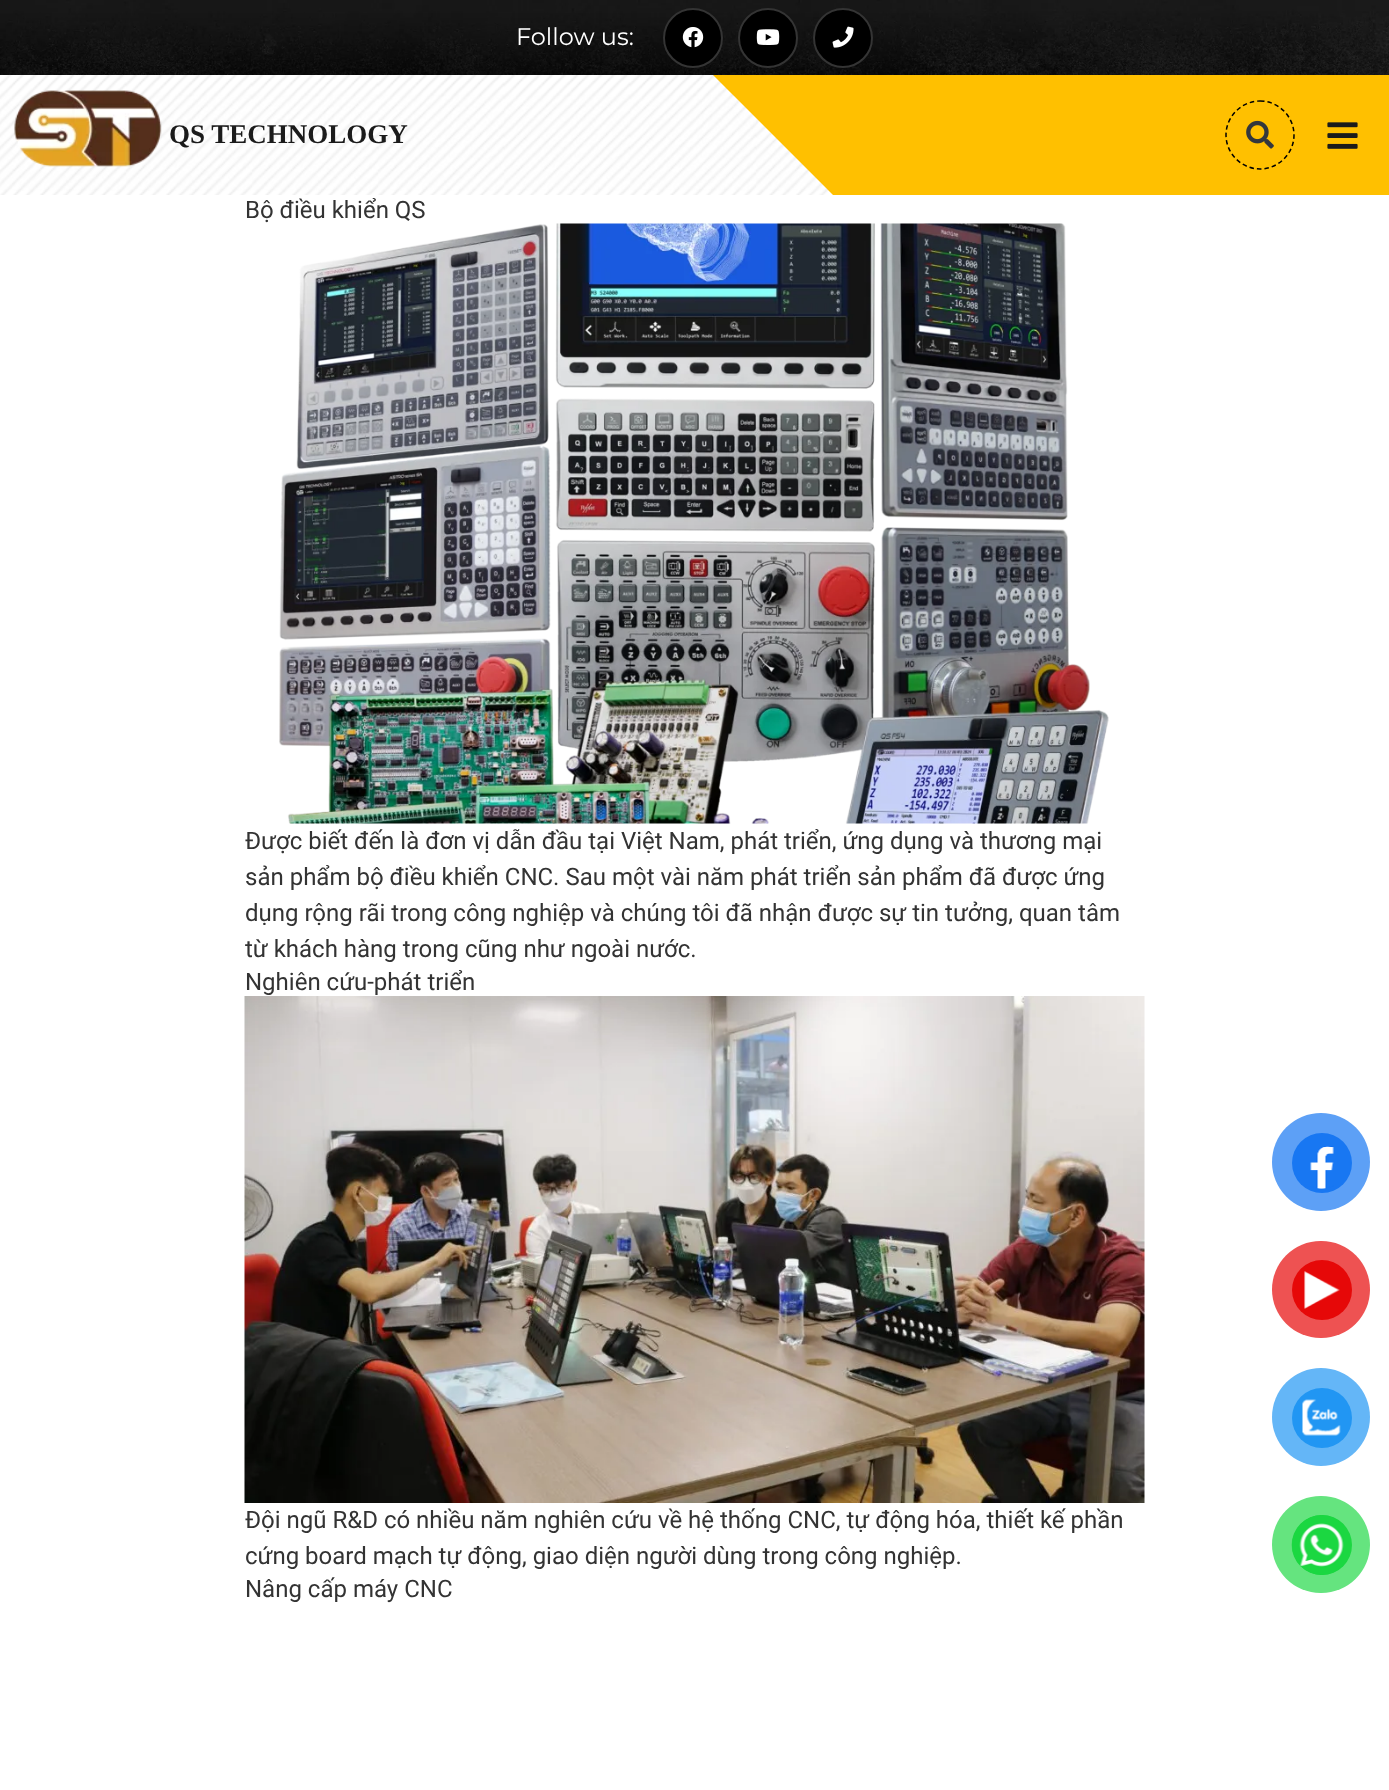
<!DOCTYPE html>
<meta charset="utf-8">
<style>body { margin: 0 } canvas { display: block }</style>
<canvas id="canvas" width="1389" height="1790"></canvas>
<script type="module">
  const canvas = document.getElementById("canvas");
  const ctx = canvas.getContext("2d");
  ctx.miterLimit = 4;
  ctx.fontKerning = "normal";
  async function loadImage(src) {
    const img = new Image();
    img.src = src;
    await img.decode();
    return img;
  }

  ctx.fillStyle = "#ffffff";
  ctx.fillRect(0, 0, 1389, 1790);
  ctx.fillStyle = "#000000";
  ctx.fillRect(0, 0, 1389, 75);
  ctx.drawImage(await loadImage("img1.png"), 0, 0, 1389, 75);
  ctx.font = "24px Montserrat";
  ctx.fillStyle = "#ffffff";
  ctx.fillText("Follow us:", 516, 45);
  ctx.fillStyle = "#000000";
  ctx.beginPath();
  ctx.arc(693, 38, 29, 0, Math.PI * 2);
  ctx.fill();
  ctx.strokeStyle = "#343434";
  ctx.lineWidth = 2;
  ctx.stroke();
  ctx.drawImage(await loadImage("img2.png"), 682, 27, 22, 21);
  ctx.beginPath();
  ctx.arc(768, 38, 29, 0, Math.PI * 2);
  ctx.fill();
  ctx.stroke();
  ctx.drawImage(await loadImage("img3.png"), 756, 29, 24, 16);
  ctx.beginPath();
  ctx.arc(843, 38, 29, 0, Math.PI * 2);
  ctx.fill();
  ctx.stroke();
  ctx.drawImage(await loadImage("img4.png"), 832, 26, 22, 22);
  ctx.fillStyle = "#ffc000";
  ctx.fillRect(713, 75, 676, 120);
  ctx.fillStyle = "#ffffff";
  ctx.beginPath();
  ctx.moveTo(0, 75);
  ctx.lineTo(0, 195);
  ctx.lineTo(833, 195);
  ctx.lineTo(713, 75);
  ctx.closePath();
  ctx.fill();
  ctx.drawImage(await loadImage("img5.png"), 0, 75, 828, 120);
  ctx.beginPath();
  ctx.moveTo(1260, 101);
  ctx.bezierCurveTo(1278.5, 101, 1294, 116.5, 1294, 135);
  ctx.bezierCurveTo(1294, 153.5, 1278.5, 169, 1260, 169);
  ctx.bezierCurveTo(1241.5, 169, 1226, 153.5, 1226, 135);
  ctx.bezierCurveTo(1226, 116.5, 1241.5, 101, 1260, 101);
  ctx.closePath();
  ctx.strokeStyle = "#000000";
  ctx.lineWidth = 1.5;
  ctx.setLineDash([4.5, 3]);
  ctx.stroke();
  ctx.drawImage(await loadImage("img6.png"), 1246, 120, 28, 29);
  ctx.drawImage(await loadImage("img7.png"), 1327, 122, 31, 27);
  ctx.drawImage(await loadImage("img8.png"), 14, 90, 148, 77);
  ctx.font = "bold 27px Liberation Serif";
  ctx.fillStyle = "#1b1b1b";
  ctx.fillText("QS TECHNOLOGY", 169, 143);
  ctx.font = "24px Roboto";
  ctx.fillStyle = "#333333";
  ctx.fillText("Bộ điều khiển QS", 245, 218);
  ctx.drawImage(await loadImage("img9.png"), 279, 223, 830, 601);
  ctx.fillText("Được biết đến là đơn vị dẫn đầu tại Việt Nam, phát triển, ứng dụng và thương mại", 245, 849);
  ctx.fillText("sản phẩm bộ điều khiển CNC. Sau một vài năm phát triển sản phẩm đã được ứng", 245, 885);
  ctx.fillText("dụng rộng rãi trong công nghiệp và chúng tôi đã nhận được sự tin tưởng, quan tâm", 245, 921);
  ctx.fillText("từ khách hàng trong cũng như ngoài nước.", 245, 957);
  ctx.fillText("Nghiên cứu-phát triển", 245, 990);
  ctx.drawImage(await loadImage("img10.png"), 244, 996, 901, 507);
  ctx.fillText("Đội ngũ R&D có nhiều năm nghiên cứu về hệ thống CNC, tự động hóa, thiết kế phần", 245, 1528);
  ctx.fillText("cứng board mạch tự động, giao diện người dùng trong công nghiệp.", 245, 1564);
  ctx.fillText("Nâng cấp máy CNC", 245, 1597);
  ctx.fillStyle = "#5da0f6";
  ctx.beginPath();
  ctx.arc(1321, 1162, 49, 0, Math.PI * 2);
  ctx.fill();
  ctx.fillStyle = "#1877f2";
  ctx.beginPath();
  ctx.arc(1322, 1163, 30, 0, Math.PI * 2);
  ctx.fill();
  ctx.drawImage(await loadImage("img11.png"), 1310, 1146, 24, 43);
  ctx.fillStyle = "#ee5252";
  ctx.beginPath();
  ctx.roundRect(1272, 1241, 98, 97, 48.5);
  ctx.fill();
  ctx.fillStyle = "#e60808";
  ctx.beginPath();
  ctx.arc(1322, 1290, 30, 0, Math.PI * 2);
  ctx.fill();
  ctx.drawImage(await loadImage("img12.png"), 1304, 1271, 36, 38);
  ctx.fillStyle = "#64b6f7";
  ctx.beginPath();
  ctx.arc(1321, 1417, 49, 0, Math.PI * 2);
  ctx.fill();
  ctx.fillStyle = "#2196f3";
  ctx.beginPath();
  ctx.arc(1322, 1418, 30, 0, Math.PI * 2);
  ctx.fill();
  ctx.drawImage(await loadImage("img13.png"), 1302, 1399, 39, 37);
  ctx.fillStyle = "#65e47f";
  ctx.beginPath();
  ctx.roundRect(1272, 1496, 98, 97, 48.5);
  ctx.fill();
  ctx.fillStyle = "#1cd741";
  ctx.beginPath();
  ctx.arc(1322, 1545, 30, 0, Math.PI * 2);
  ctx.fill();
  ctx.drawImage(await loadImage("img14.png"), 1291, 1515, 53, 60);
</script>
